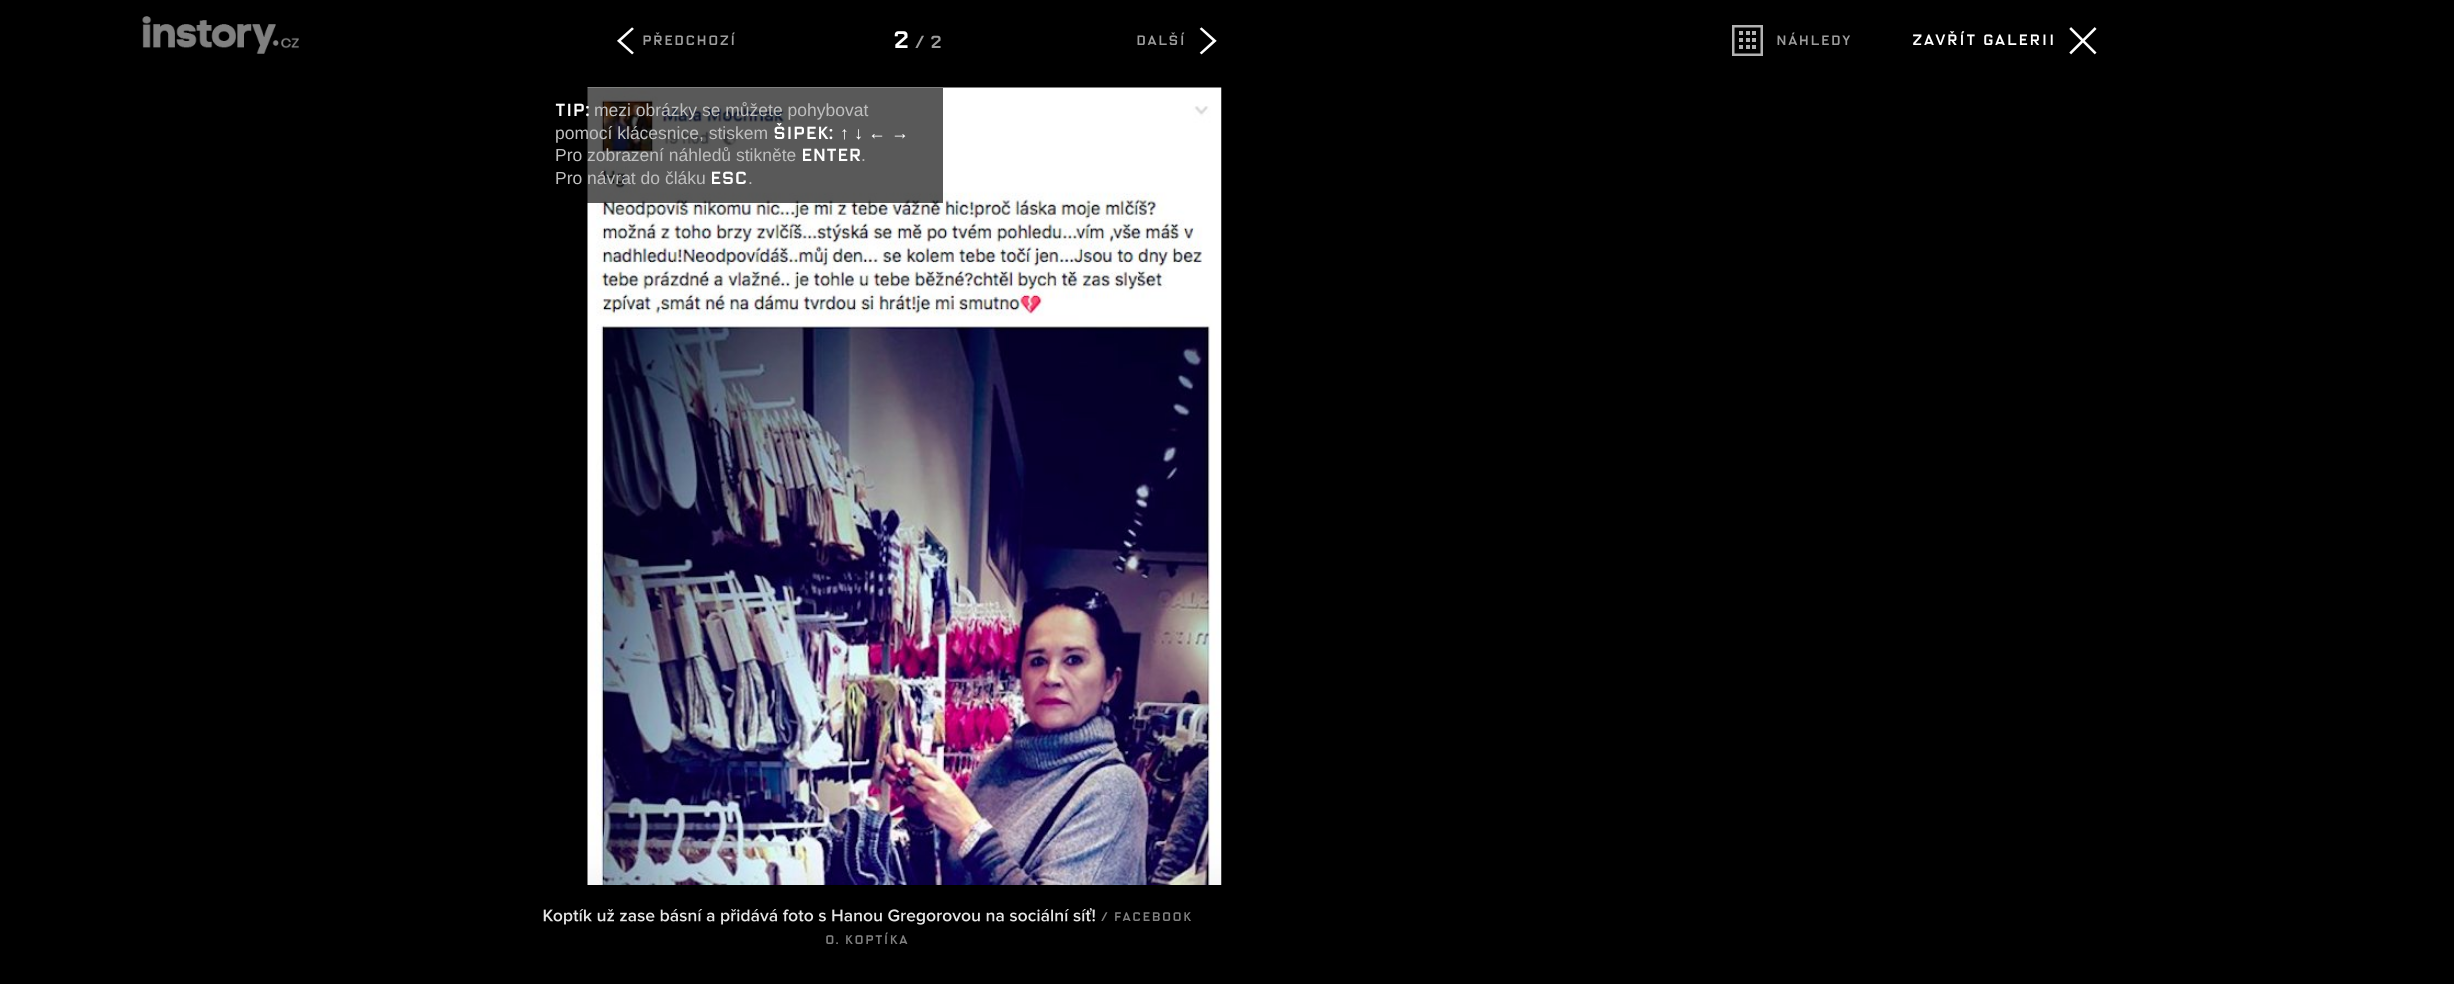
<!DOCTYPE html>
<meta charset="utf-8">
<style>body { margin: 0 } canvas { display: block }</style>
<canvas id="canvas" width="2454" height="984"></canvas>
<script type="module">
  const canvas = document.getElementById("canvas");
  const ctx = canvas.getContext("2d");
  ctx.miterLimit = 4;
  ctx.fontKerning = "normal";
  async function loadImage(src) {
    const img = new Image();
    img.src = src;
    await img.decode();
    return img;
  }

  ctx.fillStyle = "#000000";
  ctx.fillRect(0, 0, 2454, 984);
  ctx.drawImage(await loadImage("img1.png"), 142, 16, 157, 38);
  ctx.drawImage(await loadImage("img2.png"), 617, 27, 17, 28);
  ctx.letterSpacing = "1px";
  ctx.font = "13.75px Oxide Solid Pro";
  ctx.fillStyle = "#9c9c9c";
  ctx.fillText("Předchozí", 642, 45);
  ctx.letterSpacing = "0px";
  ctx.font = "24px Oxide Solid Pro";
  ctx.fillStyle = "#ffffff";
  ctx.fillText("2", 893, 48);
  ctx.font = "17.5px Oxide Solid Pro";
  ctx.fillStyle = "#9c9c9c";
  ctx.fillText("/ 2", 915, 48);
  ctx.letterSpacing = "1px";
  ctx.font = "13.75px Oxide Solid Pro";
  ctx.fillText("Další", 1136, 45);
  ctx.drawImage(await loadImage("img3.png"), 1199, 27, 18, 28);
  ctx.drawImage(await loadImage("img4.png"), 587, 87, 635, 798);
  ctx.fillStyle = "rgba(0, 0, 0, 0.65)";
  ctx.fillRect(587, 88, 356, 115);
  ctx.letterSpacing = "0px";
  ctx.font = "17.5px Oxide Solid Pro";
  ctx.fillStyle = "#ffffff";
  ctx.fillText("TIP:", 555, 116);
  ctx.font = "17.5px Liberation Sans";
  ctx.fillStyle = "#bebebe";
  ctx.fillText("mezi obrázky se můžete pohybovat", 594, 116);
  ctx.fillText("pomocí klácesnice, stiskem", 555, 139);
  ctx.font = "17.5px Oxide Solid Pro";
  ctx.fillStyle = "#ffffff";
  ctx.fillText("šipek:", 773, 139);
  ctx.wordSpacing = "1px";
  ctx.font = "17.5px Liberation Serif";
  ctx.fillText("↑ ↓ ← →", 840, 139);
  ctx.wordSpacing = "0px";
  ctx.font = "17.5px Liberation Sans";
  ctx.fillStyle = "#bebebe";
  ctx.fillText("Pro zobrazení náhledů stikněte", 555, 161);
  ctx.font = "17.5px Oxide Solid Pro";
  ctx.fillStyle = "#ffffff";
  ctx.fillText("Enter", 801, 161);
  ctx.font = "17.5px Liberation Sans";
  ctx.fillStyle = "#bebebe";
  ctx.fillText(".", 861, 161);
  ctx.fillText("Pro návrat do čláku", 555, 184);
  ctx.font = "17.5px Oxide Solid Pro";
  ctx.fillStyle = "#ffffff";
  ctx.fillText("Esc", 710, 184);
  ctx.font = "17.5px Liberation Sans";
  ctx.fillStyle = "#bebebe";
  ctx.fillText(".", 748, 184);
  ctx.drawImage(await loadImage("img5.png"), 543, 908, 552, 17);
  ctx.letterSpacing = "1px";
  ctx.font = "12.5px Oxide Solid Pro";
  ctx.fillStyle = "#808080";
  ctx.fillText("/ Facebook", 1101, 921);
  ctx.fillText("O. Koptíka", 825, 944);
  ctx.drawImage(await loadImage("img6.png"), 1732, 25, 31, 31);
  ctx.font = "13.75px Oxide Solid Pro";
  ctx.fillStyle = "#9c9c9c";
  ctx.fillText("Náhledy", 1776, 45);
  ctx.letterSpacing = "1.25px";
  ctx.font = "15px Oxide Solid Pro";
  ctx.fillStyle = "#ffffff";
  ctx.fillText("Zavřít galerii", 1912, 45);
  ctx.drawImage(await loadImage("img7.png"), 2069, 27, 28, 28);
</script>
